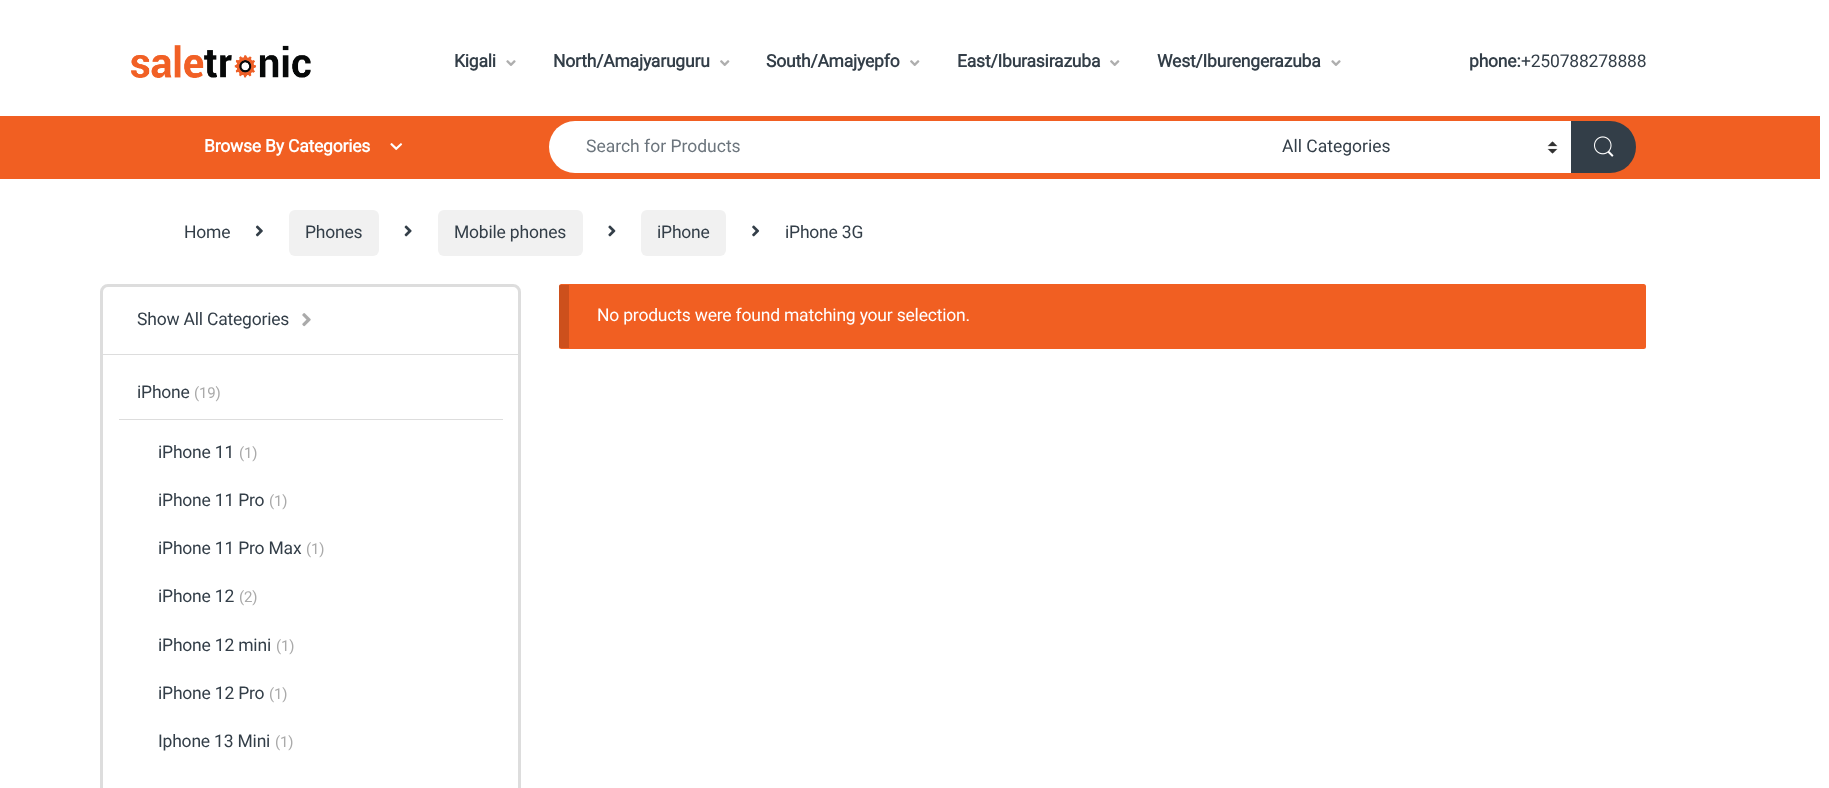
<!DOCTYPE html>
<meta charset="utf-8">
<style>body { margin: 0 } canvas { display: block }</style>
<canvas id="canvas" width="1829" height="788"></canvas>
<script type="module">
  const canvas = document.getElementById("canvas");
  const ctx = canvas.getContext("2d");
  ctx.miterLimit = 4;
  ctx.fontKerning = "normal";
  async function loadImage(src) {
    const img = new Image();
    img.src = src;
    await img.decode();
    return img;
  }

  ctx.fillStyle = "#ffffff";
  ctx.fillRect(0, 0, 1829, 788);
  ctx.drawImage(await loadImage("img1.png"), 131, 45, 180, 33);
  ctx.letterSpacing = "-0.2px";
  ctx.font = "bold 17.5px Roboto";
  ctx.fillStyle = "#333e48";
  ctx.fillText("Kigali", 454, 67);
  ctx.drawImage(await loadImage("img2.png"), 506, 60, 10, 6);
  ctx.fillText("North/Amajyaruguru", 553, 67);
  ctx.drawImage(await loadImage("img3.png"), 720, 60, 10, 6);
  ctx.fillText("South/Amajyepfo", 766, 67);
  ctx.drawImage(await loadImage("img3.png"), 910, 60, 10, 6);
  ctx.fillText("East/Iburasirazuba", 957, 67);
  ctx.drawImage(await loadImage("img3.png"), 1110, 60, 10, 6);
  ctx.fillText("West/Iburengerazuba", 1157, 67);
  ctx.drawImage(await loadImage("img2.png"), 1331, 60, 10, 6);
  ctx.fillText("phone:", 1469, 67);
  ctx.font = "17.5px Roboto";
  ctx.fillText("+250788278888", 1521, 67);
  ctx.fillStyle = "#f15f22";
  ctx.fillRect(0, 116, 1820, 63);
  ctx.font = "bold 17.5px Roboto";
  ctx.fillStyle = "#ffffff";
  ctx.fillText("Browse By Categories", 204, 152);
  ctx.drawImage(await loadImage("img4.png"), 390, 143, 13, 8);
  ctx.beginPath();
  ctx.roundRect(549, 121, 720, 52, [26, 0, 0, 26]);
  ctx.fill();
  ctx.letterSpacing = "0px";
  ctx.font = "17.5px Roboto";
  ctx.fillStyle = "#6c757d";
  ctx.fillText("Search for Products", 586, 152);
  ctx.fillStyle = "#ffffff";
  ctx.fillRect(1269, 121, 302, 52);
  ctx.drawImage(await loadImage("img5.png"), 1547, 141, 11, 13);
  ctx.fillStyle = "#333e48";
  ctx.fillText("All Categories", 1282, 152);
  ctx.beginPath();
  ctx.roundRect(1571, 121, 65, 52, [0, 26, 26, 0]);
  ctx.fill();
  ctx.drawImage(await loadImage("img6.png"), 1594, 136, 20, 21);
  ctx.letterSpacing = "-0.2px";
  ctx.fillText("Home", 184, 238);
  ctx.drawImage(await loadImage("img7.png"), 255, 225, 8, 12);
  ctx.fillStyle = "#f1f1f1";
  ctx.beginPath();
  ctx.roundRect(289, 210, 90, 46, 6);
  ctx.fill();
  ctx.fillStyle = "#333e48";
  ctx.fillText("Phones", 305, 238);
  ctx.drawImage(await loadImage("img8.png"), 404, 225, 8, 12);
  ctx.fillStyle = "#f1f1f1";
  ctx.beginPath();
  ctx.roundRect(438, 210, 145, 46, 6);
  ctx.fill();
  ctx.fillStyle = "#333e48";
  ctx.fillText("Mobile phones", 454, 238);
  ctx.drawImage(await loadImage("img9.png"), 608, 225, 8, 12);
  ctx.fillStyle = "#f1f1f1";
  ctx.beginPath();
  ctx.roundRect(641, 210, 85, 46, 6);
  ctx.fill();
  ctx.fillStyle = "#333e48";
  ctx.fillText("iPhone", 657, 238);
  ctx.drawImage(await loadImage("img10.png"), 752, 225, 8, 12);
  ctx.fillText("iPhone 3G", 785, 238);
  ctx.beginPath();
  ctx.roundRect(101.5, 285.5, 418, 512, 6.5);
  ctx.strokeStyle = "#dddddd";
  ctx.lineWidth = 3;
  ctx.stroke();
  ctx.fillStyle = "#dddddd";
  ctx.fillRect(103, 354, 416, 1);
  ctx.fillStyle = "#333e48";
  ctx.fillText("Show All Categories", 137, 325);
  ctx.drawImage(await loadImage("img11.png"), 302, 313, 9, 14);
  ctx.fillText("iPhone", 137, 398);
  ctx.font = "15px Roboto";
  ctx.fillStyle = "#aaaaaa";
  ctx.fillText("(19)", 194, 398);
  ctx.fillStyle = "#dddddd";
  ctx.fillRect(119, 419, 384, 1);
  ctx.font = "17.5px Roboto";
  ctx.fillStyle = "#333e48";
  ctx.fillText("iPhone 11", 158, 458);
  ctx.font = "15px Roboto";
  ctx.fillStyle = "#aaaaaa";
  ctx.fillText("(1)", 239, 458);
  ctx.font = "17.5px Roboto";
  ctx.fillStyle = "#333e48";
  ctx.fillText("iPhone 11 Pro", 158, 506);
  ctx.font = "15px Roboto";
  ctx.fillStyle = "#aaaaaa";
  ctx.fillText("(1)", 269, 506);
  ctx.font = "17.5px Roboto";
  ctx.fillStyle = "#333e48";
  ctx.fillText("iPhone 11 Pro Max", 158, 554);
  ctx.font = "15px Roboto";
  ctx.fillStyle = "#aaaaaa";
  ctx.fillText("(1)", 306, 554);
  ctx.font = "17.5px Roboto";
  ctx.fillStyle = "#333e48";
  ctx.fillText("iPhone 12", 158, 602);
  ctx.font = "15px Roboto";
  ctx.fillStyle = "#aaaaaa";
  ctx.fillText("(2)", 239, 602);
  ctx.font = "17.5px Roboto";
  ctx.fillStyle = "#333e48";
  ctx.fillText("iPhone 12 mini", 158, 651);
  ctx.font = "15px Roboto";
  ctx.fillStyle = "#aaaaaa";
  ctx.fillText("(1)", 276, 651);
  ctx.font = "17.5px Roboto";
  ctx.fillStyle = "#333e48";
  ctx.fillText("iPhone 12 Pro", 158, 699);
  ctx.font = "15px Roboto";
  ctx.fillStyle = "#aaaaaa";
  ctx.fillText("(1)", 269, 699);
  ctx.font = "17.5px Roboto";
  ctx.fillStyle = "#333e48";
  ctx.fillText("Iphone 13 Mini", 158, 747);
  ctx.font = "15px Roboto";
  ctx.fillStyle = "#aaaaaa";
  ctx.fillText("(1)", 275, 747);
  ctx.fillStyle = "#f15f22";
  ctx.beginPath();
  ctx.roundRect(559, 284, 1087, 65, 2.5);
  ctx.fill();
  ctx.fillStyle = "rgba(0, 0, 0, 0.15)";
  ctx.fillRect(559, 285, 10, 63);
  ctx.font = "17.5px Roboto";
  ctx.fillStyle = "#ffffff";
  ctx.fillText("No products were found matching your selection.", 597, 321);
</script>
